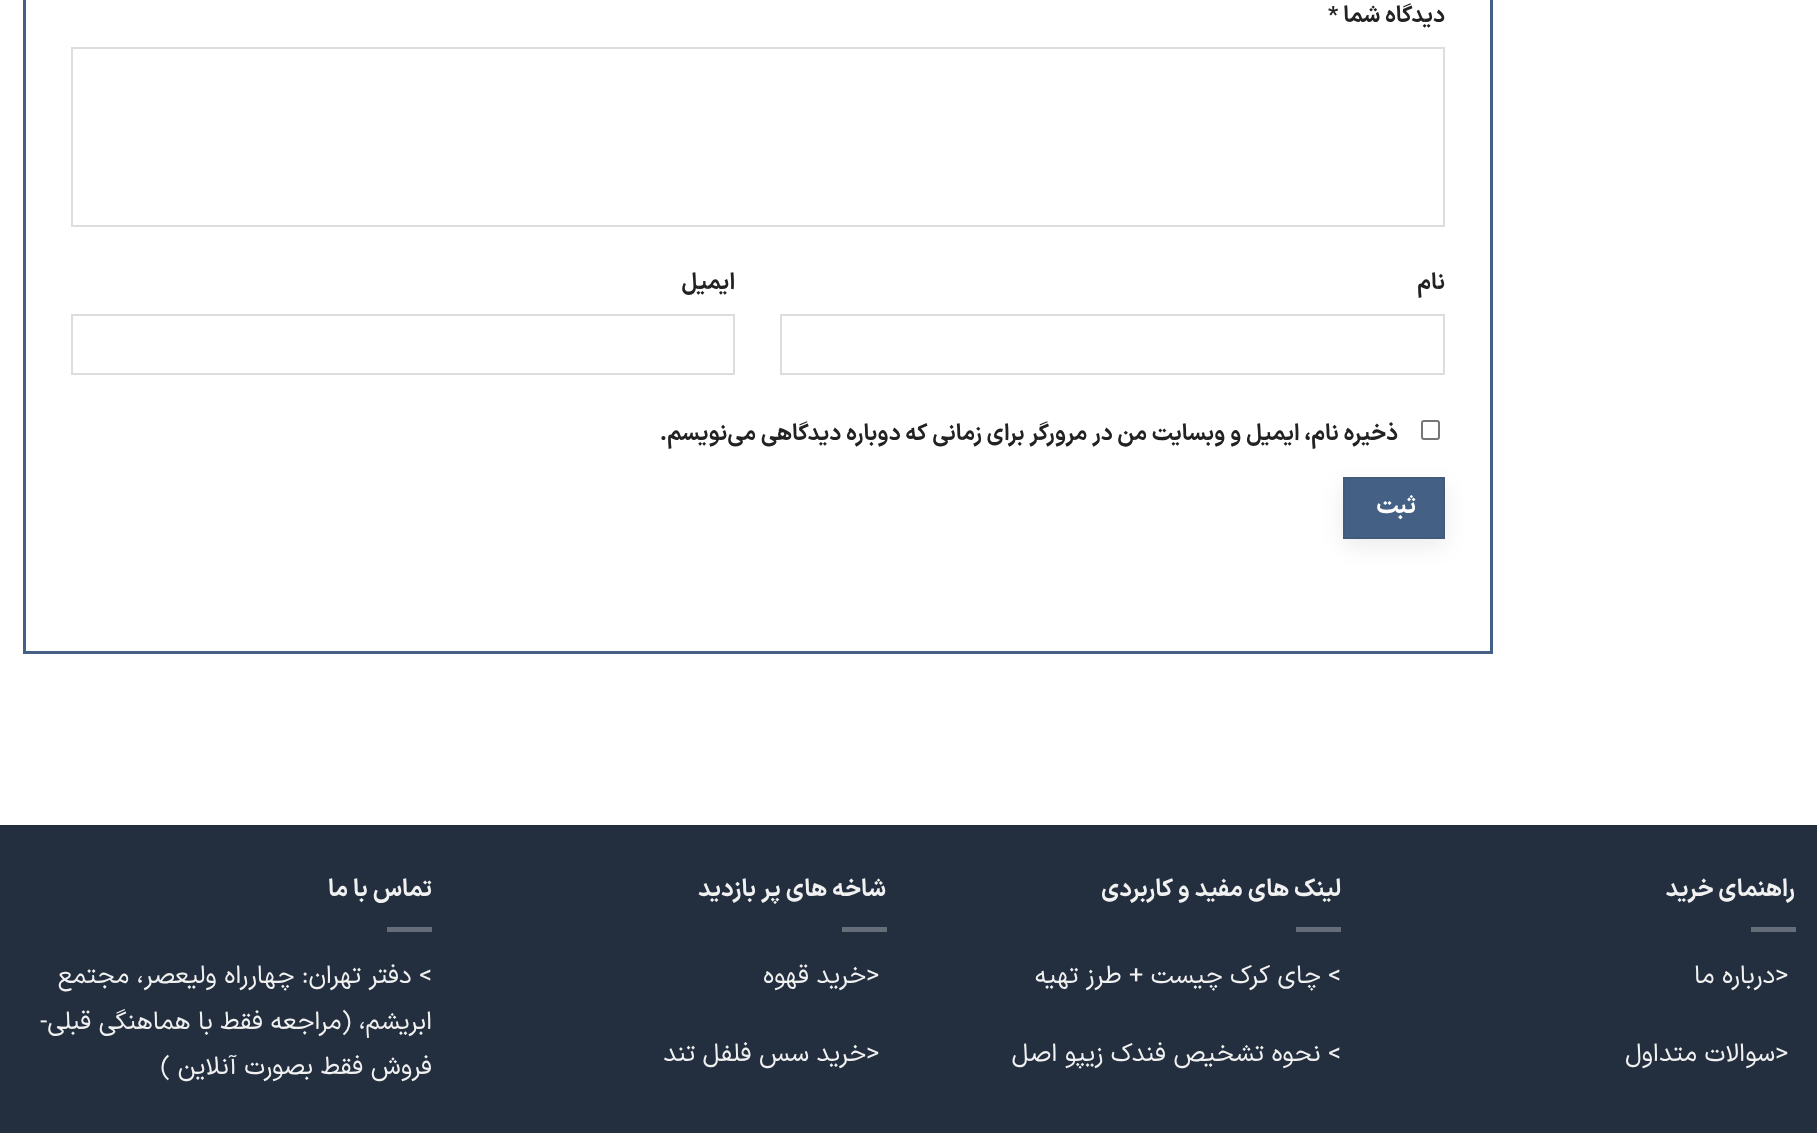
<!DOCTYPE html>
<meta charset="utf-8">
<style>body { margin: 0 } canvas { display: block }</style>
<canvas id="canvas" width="1817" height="1133"></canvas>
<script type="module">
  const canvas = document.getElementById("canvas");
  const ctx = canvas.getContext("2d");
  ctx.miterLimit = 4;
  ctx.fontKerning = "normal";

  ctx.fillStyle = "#ffffff";
  ctx.fillRect(0, 0, 1817, 1133);
  ctx.strokeStyle = "#446084";
  ctx.lineWidth = 3;
  ctx.strokeRect(24.5, -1.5, 1467, 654);
  ctx.direction = "rtl";
  ctx.font = "bold 22.7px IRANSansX";
  ctx.fillStyle = "#222222";
  ctx.fillText("دیدگاه شما", 1445, 22);
  ctx.direction = "ltr";
  ctx.fillText("*", 1328, 22);
  ctx.strokeStyle = "#dddddd";
  ctx.lineWidth = 2;
  ctx.strokeRect(72, 48, 1372, 178);
  ctx.direction = "rtl";
  ctx.fillText("نام", 1445, 289);
  ctx.strokeRect(781, 315, 663, 59);
  ctx.fillText("ایمیل", 735, 289);
  ctx.strokeRect(72, 315, 662, 59);
  ctx.beginPath();
  ctx.roundRect(1422, 421, 17, 18, 2);
  ctx.strokeStyle = "#767676";
  ctx.stroke();
  ctx.fillText("ذخیره نام، ایمیل و وبسایت من در مرورگر برای زمانی که دوباره دیدگاهی می‌نویسم.", 1398, 440);
  ctx.fillStyle = "rgba(0, 0, 0, 0.08)";
  ctx.filter = "blur(11px)";
  ctx.beginPath();
  ctx.rect(1343, 485, 102, 61);
  ctx.fill();
  ctx.filter = "none";
  ctx.fillStyle = "#446084";
  ctx.beginPath();
  ctx.rect(1344, 478, 100, 60);
  ctx.fill();
  ctx.strokeStyle = "#415b7d";
  ctx.stroke();
  ctx.letterSpacing = "1px";
  ctx.font = "bold 24px IRANSansX";
  ctx.fillStyle = "#ffffff";
  ctx.fillText("ثبت", 1416, 513);
  ctx.fillStyle = "#232f3e";
  ctx.fillRect(0, 827, 1817, 306);
  ctx.fillStyle = "#212d3b";
  ctx.fillRect(0, 825, 1817, 2);
  ctx.letterSpacing = "0px";
  ctx.fillStyle = "#f1f1f1";
  ctx.fillText("راهنمای خرید", 1795, 896);
  ctx.fillStyle = "#656d78";
  ctx.fillRect(1751, 927, 45, 5);
  ctx.direction = "ltr";
  ctx.font = "25.25px IRANSansX";
  ctx.fillStyle = "#f1f1f1";
  ctx.fillText(">", 1775, 983);
  ctx.direction = "rtl";
  ctx.fillText("درباره ما", 1775, 983);
  ctx.direction = "ltr";
  ctx.fillText(">", 1775, 1061);
  ctx.direction = "rtl";
  ctx.fillText("سوالات متداول", 1775, 1061);
  ctx.font = "bold 24px IRANSansX";
  ctx.fillText("لینک های مفید و کاربردی", 1341, 896);
  ctx.fillStyle = "#656d78";
  ctx.fillRect(1296, 927, 45, 5);
  ctx.font = "25.25px IRANSansX";
  ctx.fillStyle = "#f1f1f1";
  ctx.fillText("> چای کرک چیست + طرز تهیه", 1341, 983);
  ctx.fillText("> نحوه تشخیص فندک زیپو اصل", 1341, 1061);
  ctx.font = "bold 24px IRANSansX";
  ctx.fillText("شاخه های پر بازدید", 886, 896);
  ctx.fillStyle = "#656d78";
  ctx.fillRect(842, 927, 45, 5);
  ctx.direction = "ltr";
  ctx.font = "25.25px IRANSansX";
  ctx.fillStyle = "#f1f1f1";
  ctx.fillText(">", 866, 983);
  ctx.direction = "rtl";
  ctx.fillText("خرید قهوه", 866, 983);
  ctx.direction = "ltr";
  ctx.fillText(">", 866, 1061);
  ctx.direction = "rtl";
  ctx.fillText("خرید سس فلفل تند", 866, 1061);
  ctx.font = "bold 24px IRANSansX";
  ctx.fillText("تماس با ما", 432, 896);
  ctx.fillStyle = "#656d78";
  ctx.fillRect(387, 927, 45, 5);
  ctx.font = "25.25px IRANSansX";
  ctx.fillStyle = "#f1f1f1";
  ctx.fillText("> دفتر تهران: چهارراه ولیعصر، مجتمع", 432, 983);
  ctx.fillText("ابریشم، (مراجعه فقط با هماهنگی قبلی-", 432, 1029);
  ctx.fillText("فروش فقط بصورت آنلاین )", 432, 1074);
</script>
